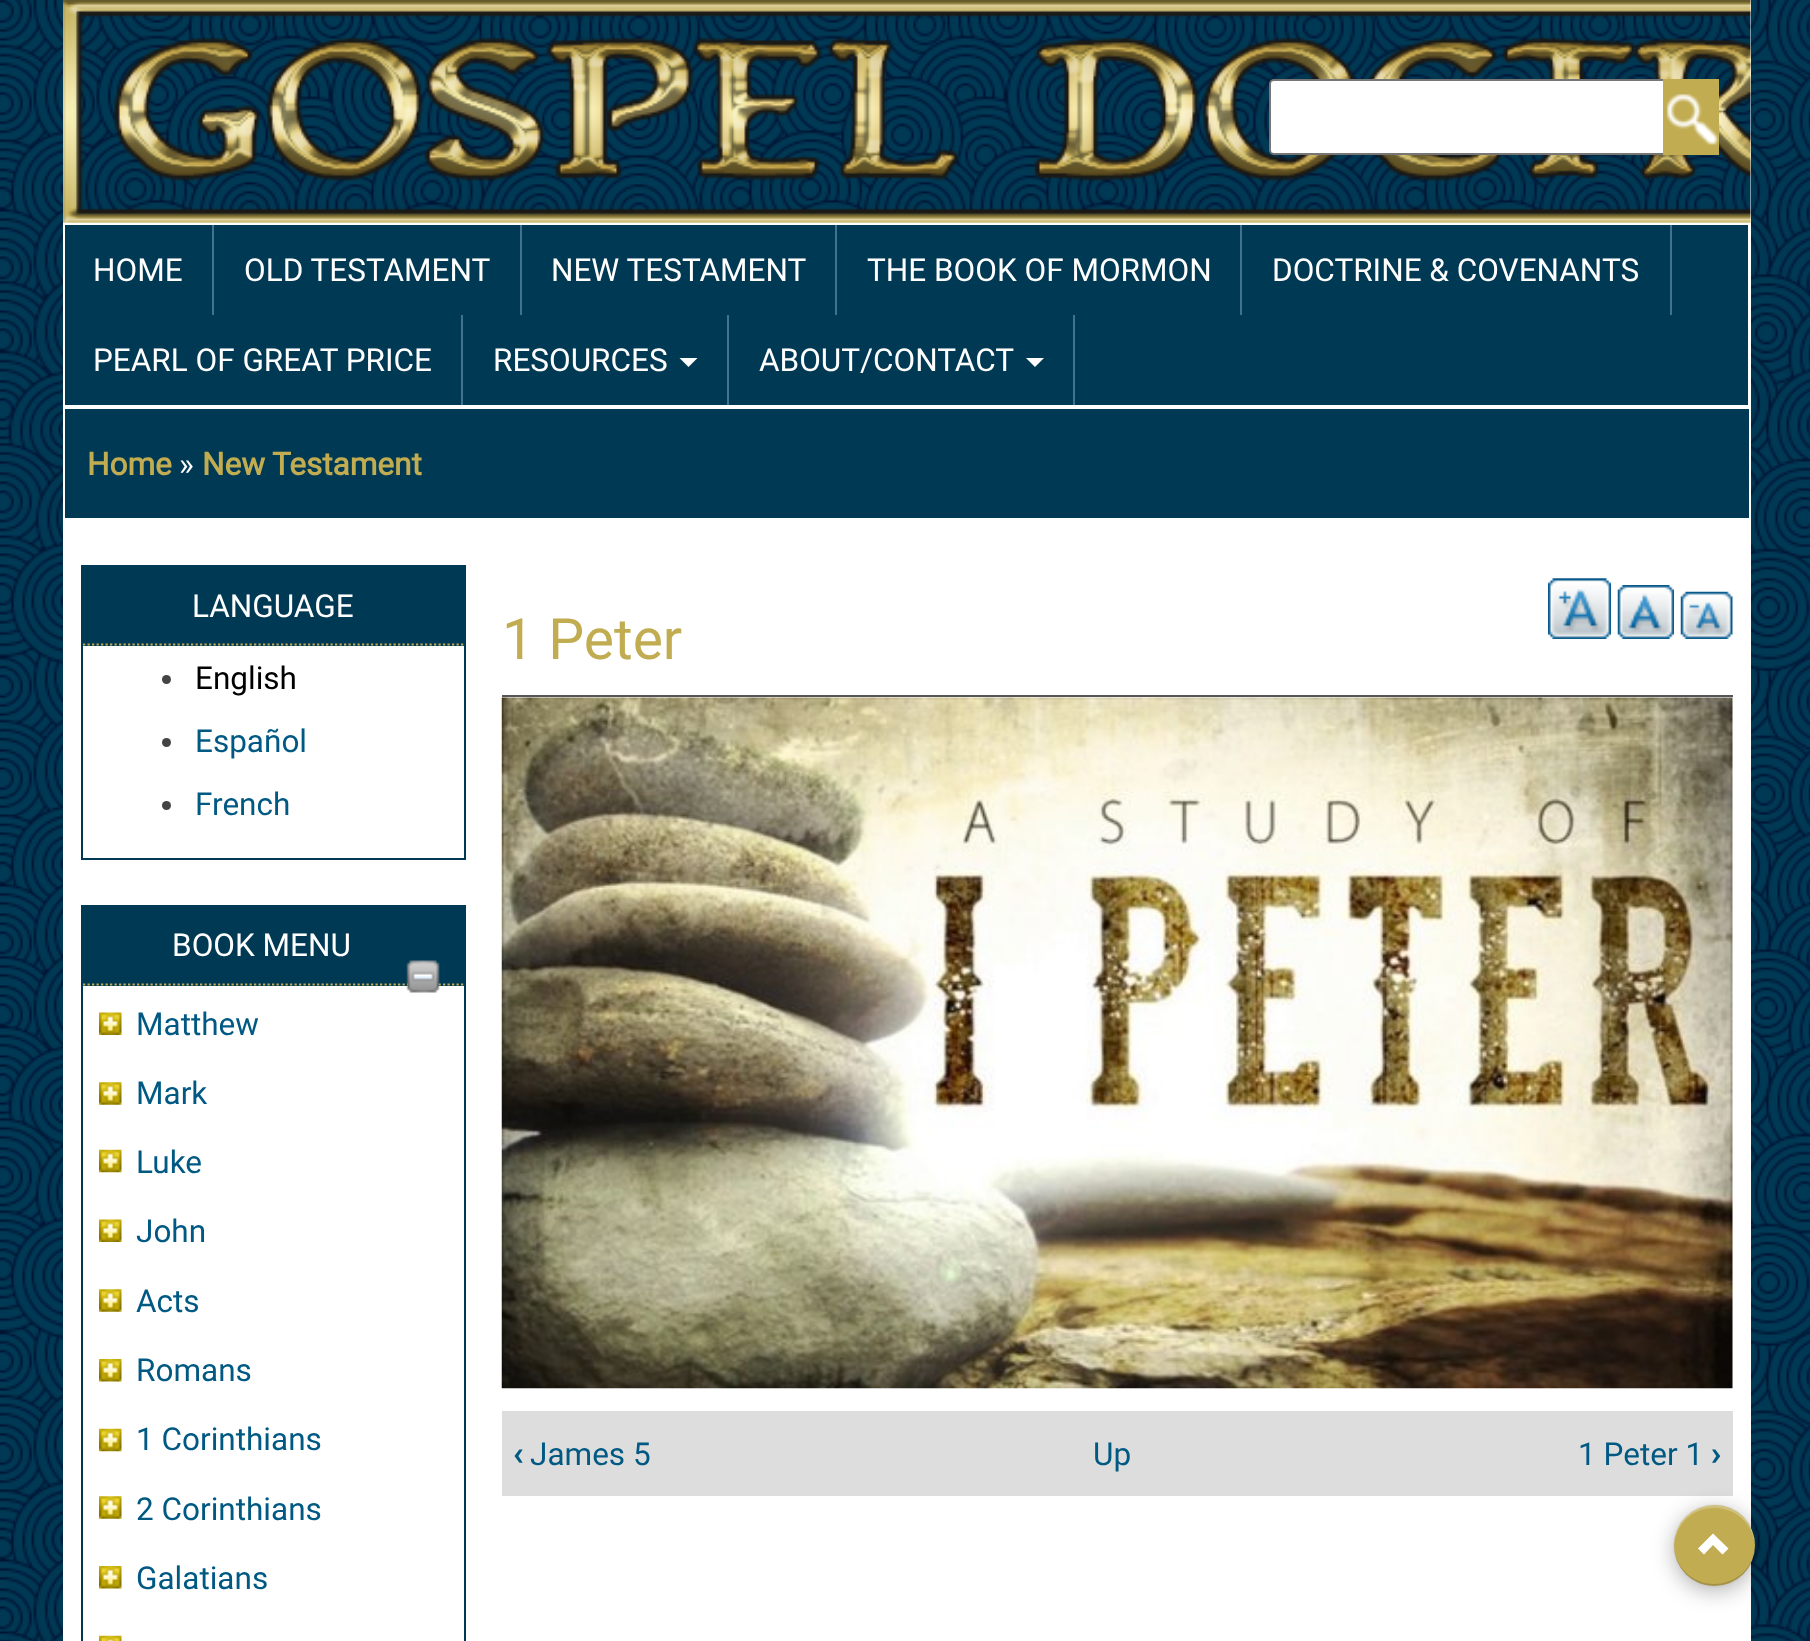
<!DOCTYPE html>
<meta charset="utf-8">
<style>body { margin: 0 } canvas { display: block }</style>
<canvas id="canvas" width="1810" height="1641"></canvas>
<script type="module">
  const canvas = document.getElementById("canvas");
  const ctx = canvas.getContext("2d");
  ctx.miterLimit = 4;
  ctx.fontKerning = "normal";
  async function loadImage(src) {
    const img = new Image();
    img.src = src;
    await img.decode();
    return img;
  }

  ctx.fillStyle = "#ffffff";
  ctx.fillRect(0, 0, 1810, 1641);
  ctx.drawImage(await loadImage("img1.png"), 0, 0, 1810, 1641);
  ctx.fillRect(63, 0, 1688, 1641);
  ctx.drawImage(await loadImage("img2.png"), 63, 0, 1688, 223);
  ctx.beginPath();
  ctx.roundRect(1270, 80, 448, 74, 4);
  ctx.fill();
  ctx.strokeStyle = "#767676";
  ctx.lineWidth = 2;
  ctx.stroke();
  ctx.fillStyle = "#c1ac51";
  ctx.fillRect(1663, 79, 56, 76);
  ctx.drawImage(await loadImage("img3.png"), 1666, 94, 53, 51);
  ctx.fillStyle = "#003954";
  ctx.fillRect(65, 225, 1683, 180);
  ctx.fillStyle = "#427290";
  ctx.fillRect(212, 225, 2, 90);
  ctx.font = "31.5px Roboto";
  ctx.fillStyle = "#ffffff";
  ctx.fillText("HOME", 93, 281);
  ctx.fillStyle = "#427290";
  ctx.fillRect(520, 225, 2, 90);
  ctx.fillStyle = "#ffffff";
  ctx.fillText("OLD TESTAMENT", 244, 281);
  ctx.fillStyle = "#427290";
  ctx.fillRect(835, 225, 2, 90);
  ctx.fillStyle = "#ffffff";
  ctx.fillText("NEW TESTAMENT", 551, 281);
  ctx.fillStyle = "#427290";
  ctx.fillRect(1240, 225, 2, 90);
  ctx.fillStyle = "#ffffff";
  ctx.fillText("THE BOOK OF MORMON", 867, 281);
  ctx.fillStyle = "#427290";
  ctx.fillRect(1670, 225, 2, 90);
  ctx.fillStyle = "#ffffff";
  ctx.fillText("DOCTRINE & COVENANTS", 1272, 281);
  ctx.fillStyle = "#427290";
  ctx.fillRect(461, 315, 2, 90);
  ctx.fillStyle = "#ffffff";
  ctx.fillText("PEARL OF GREAT PRICE", 93, 371);
  ctx.fillStyle = "#427290";
  ctx.fillRect(727, 315, 2, 90);
  ctx.fillStyle = "#ffffff";
  ctx.fillText("RESOURCES", 493, 371);
  ctx.beginPath();
  ctx.moveTo(679.5, 358);
  ctx.lineTo(697.5, 358);
  ctx.lineTo(688.5, 367);
  ctx.closePath();
  ctx.fill();
  ctx.fillStyle = "#427290";
  ctx.fillRect(1073, 315, 2, 90);
  ctx.fillStyle = "#ffffff";
  ctx.fillText("ABOUT/CONTACT", 759, 371);
  ctx.beginPath();
  ctx.moveTo(1026, 358);
  ctx.lineTo(1044, 358);
  ctx.lineTo(1035, 367);
  ctx.closePath();
  ctx.fill();
  ctx.fillStyle = "#003954";
  ctx.fillRect(65, 409, 1684, 109);
  ctx.font = "bold 31.5px Roboto";
  ctx.fillStyle = "#c1ac51";
  ctx.fillText("Home", 87, 475);
  ctx.font = "31.5px Roboto";
  ctx.fillStyle = "#ffffff";
  ctx.fillText("»", 179, 475);
  ctx.font = "bold 31.5px Roboto";
  ctx.fillStyle = "#c1ac51";
  ctx.fillText("New Testament", 202, 475);
  ctx.strokeStyle = "#003954";
  ctx.strokeRect(82, 566, 383, 293);
  ctx.fillStyle = "#003954";
  ctx.fillRect(83, 567, 381, 79);
  ctx.beginPath();
  ctx.moveTo(83, 644.5);
  ctx.lineTo(463.5, 644.5);
  ctx.strokeStyle = "#c1ac51";
  ctx.lineWidth = 2.2;
  ctx.setLineDash([2.25, 2.25]);
  ctx.stroke();
  ctx.font = "31.5px Roboto";
  ctx.fillStyle = "#ffffff";
  ctx.fillText("LANGUAGE", 192, 617);
  ctx.fillStyle = "#444444";
  ctx.beginPath();
  ctx.arc(166.5, 679.5, 4.5, 0, Math.PI * 2);
  ctx.fill();
  ctx.fillStyle = "#000000";
  ctx.fillText("English", 195, 689);
  ctx.fillStyle = "#444444";
  ctx.beginPath();
  ctx.arc(166.5, 742.5, 4.5, 0, Math.PI * 2);
  ctx.fill();
  ctx.fillStyle = "#005983";
  ctx.fillText("Español", 195, 752);
  ctx.fillStyle = "#444444";
  ctx.beginPath();
  ctx.arc(166.5, 805.5, 4.5, 0, Math.PI * 2);
  ctx.fill();
  ctx.fillStyle = "#005983";
  ctx.fillText("French", 195, 815);
  ctx.strokeStyle = "#003954";
  ctx.lineWidth = 2;
  ctx.setLineDash([]);
  ctx.strokeRect(82, 906, 383, 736);
  ctx.fillStyle = "#003954";
  ctx.fillRect(83, 907, 381, 79);
  ctx.beginPath();
  ctx.moveTo(83, 984.5);
  ctx.lineTo(463.5, 984.5);
  ctx.strokeStyle = "#c1ac51";
  ctx.lineWidth = 2.2;
  ctx.setLineDash([2.25, 2.25]);
  ctx.stroke();
  ctx.fillStyle = "#ffffff";
  ctx.fillText("BOOK MENU", 172, 956);
  ctx.drawImage(await loadImage("img4.png"), 406, 960, 34, 33);
  ctx.drawImage(await loadImage("img5.png"), 99, 1012, 23, 23);
  ctx.fillStyle = "#005983";
  ctx.fillText("Matthew", 136, 1035);
  ctx.drawImage(await loadImage("img6.png"), 99, 1082, 23, 23);
  ctx.fillText("Mark", 136, 1104);
  ctx.drawImage(await loadImage("img7.png"), 99, 1149, 23, 24);
  ctx.fillText("Luke", 136, 1173);
  ctx.drawImage(await loadImage("img5.png"), 99, 1219, 23, 23);
  ctx.fillText("John", 136, 1242);
  ctx.drawImage(await loadImage("img6.png"), 99, 1289, 23, 23);
  ctx.fillText("Acts", 136, 1312);
  ctx.drawImage(await loadImage("img8.png"), 99, 1359, 23, 23);
  ctx.fillText("Romans", 136, 1381);
  ctx.drawImage(await loadImage("img9.png"), 99, 1428, 23, 24);
  ctx.fillText("1 Corinthians", 136, 1450);
  ctx.drawImage(await loadImage("img6.png"), 99, 1496, 23, 23);
  ctx.fillText("2 Corinthians", 136, 1520);
  ctx.drawImage(await loadImage("img8.png"), 99, 1566, 23, 23);
  ctx.fillText("Galatians", 136, 1589);
  ctx.drawImage(await loadImage("img10.png"), 99, 1635, 23, 6);
  ctx.font = "57px Roboto";
  ctx.fillStyle = "#c1ac51";
  ctx.fillText("1 Peter", 502, 659);
  ctx.drawImage(await loadImage("img11.png"), 1548, 578, 63, 61);
  ctx.drawImage(await loadImage("img12.png"), 1617, 585, 57, 54);
  ctx.drawImage(await loadImage("img13.png"), 1680, 591, 53, 48);
  ctx.fillStyle = "#555555";
  ctx.fillRect(502, 695, 1231, 2);
  ctx.drawImage(await loadImage("img14.png"), 501, 697, 1232, 692);
  ctx.fillStyle = "#dddddd";
  ctx.fillRect(502, 1411, 1231, 85);
  ctx.font = "bold 31.5px Roboto";
  ctx.fillStyle = "#005983";
  ctx.fillText("‹", 513, 1465);
  ctx.font = "31.5px Roboto";
  ctx.fillText("James 5", 530, 1465);
  ctx.fillText("Up", 1093, 1465);
  ctx.fillText("1 Peter 1", 1578, 1465);
  ctx.font = "bold 31.5px Roboto";
  ctx.fillText("›", 1711, 1465);
  ctx.fillStyle = "rgba(0, 0, 0, 0.1)";
  ctx.filter = "blur(1px)";
  ctx.beginPath();
  ctx.roundRect(1674, 1505, 81, 81, 40.5);
  ctx.fill();
  ctx.filter = "none";
  ctx.fillStyle = "rgba(0, 0, 0, 0.3)";
  ctx.filter = "blur(11px)";
  ctx.beginPath();
  ctx.roundRect(1674, 1510, 81, 81, 40.5);
  ctx.fill();
  ctx.filter = "none";
  ctx.fillStyle = "#c1ac51";
  ctx.beginPath();
  ctx.arc(1714.5, 1545.5, 40.5, 0, Math.PI * 2);
  ctx.fill();
  ctx.fillStyle = "rgba(0, 0, 0, 0.15)";
  ctx.beginPath();
  ctx.moveTo(1674, 1545);
  ctx.bezierCurveTo(1674, 1553, 1676, 1561, 1681, 1568);
  ctx.bezierCurveTo(1703, 1601, 1756, 1585, 1755, 1545);
  ctx.bezierCurveTo(1755, 1566, 1737, 1584, 1714, 1584);
  ctx.bezierCurveTo(1692, 1584, 1674, 1566, 1674, 1545);
  ctx.closePath();
  ctx.fill();
  ctx.fillStyle = "rgba(255, 255, 255, 0.25)";
  ctx.beginPath();
  ctx.moveTo(1714, 1508);
  ctx.bezierCurveTo(1737, 1508, 1754, 1525, 1755, 1547);
  ctx.bezierCurveTo(1756, 1507, 1703, 1489, 1681, 1523);
  ctx.bezierCurveTo(1676, 1530, 1674, 1538, 1674, 1547);
  ctx.bezierCurveTo(1675, 1525, 1692, 1508, 1714, 1508);
  ctx.closePath();
  ctx.fill();
  ctx.fillStyle = "#ffffff";
  ctx.beginPath();
  ctx.moveTo(1722.5, 1554.5);
  ctx.lineTo(1728.5, 1548.5);
  ctx.lineTo(1713, 1533.5);
  ctx.lineTo(1698, 1548.5);
  ctx.lineTo(1704, 1554.5);
  ctx.lineTo(1713, 1545);
  ctx.closePath();
  ctx.fill();
</script>
